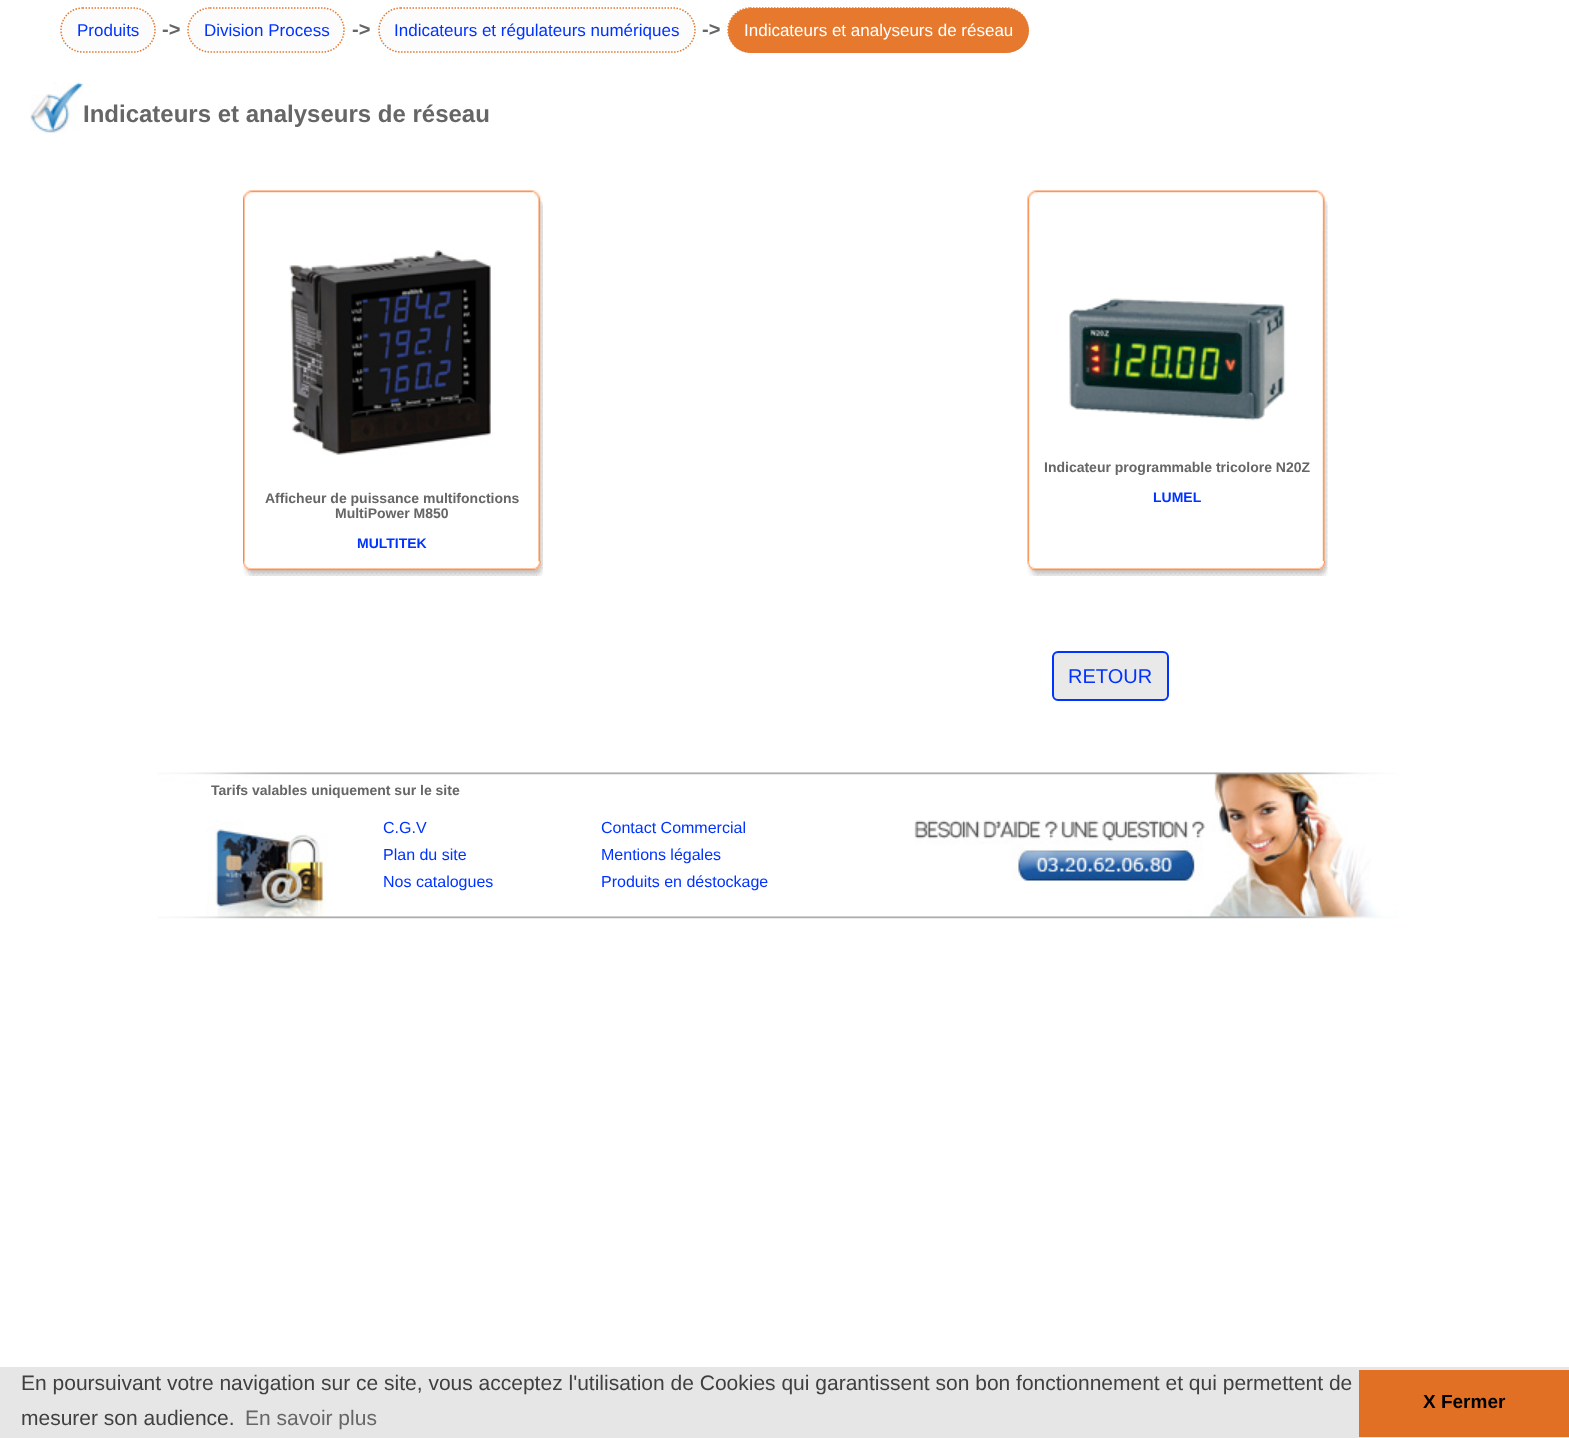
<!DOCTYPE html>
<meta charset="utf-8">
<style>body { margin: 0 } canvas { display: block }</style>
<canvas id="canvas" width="1569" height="1438"></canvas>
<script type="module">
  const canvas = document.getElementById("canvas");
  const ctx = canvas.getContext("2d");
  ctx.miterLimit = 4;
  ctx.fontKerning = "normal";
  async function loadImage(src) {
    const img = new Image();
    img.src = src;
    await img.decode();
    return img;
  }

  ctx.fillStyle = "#ffffff";
  ctx.fillRect(0, 0, 1569, 1438);
  ctx.fillStyle = "#fcfcfc";
  ctx.beginPath();
  ctx.roundRect(60, 8, 96, 45, 22.5);
  ctx.fill();
  ctx.beginPath();
  ctx.moveTo(82.5, 8);
  ctx.lineTo(133.5, 8);
  ctx.bezierCurveTo(145.5, 8, 155, 18, 155, 30);
  ctx.bezierCurveTo(155, 42, 145.5, 52, 133.5, 52);
  ctx.lineTo(82.5, 52);
  ctx.bezierCurveTo(70.5, 52, 61, 42, 61, 30);
  ctx.bezierCurveTo(61, 18, 70.5, 8, 82.5, 8);
  ctx.closePath();
  ctx.strokeStyle = "#e6792e";
  ctx.lineWidth = 1.5;
  ctx.setLineDash([1.5, 1.5]);
  ctx.stroke();
  ctx.font = "17px Liberation Sans";
  ctx.fillStyle = "#0033ff";
  ctx.fillText("Produits", 77, 36);
  ctx.font = "bold 20px Liberation Sans";
  ctx.fillStyle = "#666666";
  ctx.fillText("->", 162, 36);
  ctx.fillStyle = "#fcfcfc";
  ctx.beginPath();
  ctx.roundRect(188, 8, 157, 45, 22.5);
  ctx.fill();
  ctx.beginPath();
  ctx.moveTo(210, 8);
  ctx.lineTo(322.5, 8);
  ctx.bezierCurveTo(334.5, 8, 344, 18, 344, 30);
  ctx.bezierCurveTo(344, 42, 334.5, 52, 322.5, 52);
  ctx.lineTo(210, 52);
  ctx.bezierCurveTo(198, 52, 188, 42, 188, 30);
  ctx.bezierCurveTo(188, 18, 198, 8, 210, 8);
  ctx.closePath();
  ctx.stroke();
  ctx.font = "17px Liberation Sans";
  ctx.fillStyle = "#0033ff";
  ctx.fillText("Division Process", 204, 36);
  ctx.font = "bold 20px Liberation Sans";
  ctx.fillStyle = "#666666";
  ctx.fillText("->", 352, 36);
  ctx.fillStyle = "#fcfcfc";
  ctx.beginPath();
  ctx.roundRect(378, 8, 318, 45, 22.5);
  ctx.fill();
  ctx.beginPath();
  ctx.moveTo(400.5, 8);
  ctx.lineTo(673.5, 8);
  ctx.bezierCurveTo(685.5, 8, 695, 18, 695, 30);
  ctx.bezierCurveTo(695, 42, 685.5, 52, 673.5, 52);
  ctx.lineTo(400.5, 52);
  ctx.bezierCurveTo(388.5, 52, 379, 42, 379, 30);
  ctx.bezierCurveTo(379, 18, 388.5, 8, 400.5, 8);
  ctx.closePath();
  ctx.stroke();
  ctx.font = "17px Liberation Sans";
  ctx.fillStyle = "#0033ff";
  ctx.fillText("Indicateurs et régulateurs numériques", 394, 36);
  ctx.font = "bold 20px Liberation Sans";
  ctx.fillStyle = "#666666";
  ctx.fillText("->", 702, 36);
  ctx.fillStyle = "#e6792e";
  ctx.beginPath();
  ctx.roundRect(728, 8, 301, 45, 22.5);
  ctx.fill();
  ctx.beginPath();
  ctx.moveTo(750, 8);
  ctx.lineTo(1006.5, 8);
  ctx.bezierCurveTo(1018.5, 8, 1028, 18, 1028, 30);
  ctx.bezierCurveTo(1028, 42, 1018.5, 52, 1006.5, 52);
  ctx.lineTo(750, 52);
  ctx.bezierCurveTo(738, 52, 728, 42, 728, 30);
  ctx.bezierCurveTo(728, 18, 738, 8, 750, 8);
  ctx.closePath();
  ctx.stroke();
  ctx.font = "17px Liberation Sans";
  ctx.fillStyle = "#ffffff";
  ctx.fillText("Indicateurs et analyseurs de réseau", 744, 36);
  ctx.drawImage(await loadImage("img1.png"), 30, 82, 53, 52);
  ctx.font = "bold 24px Liberation Sans";
  ctx.fillStyle = "#666666";
  ctx.fillText("Indicateurs et analyseurs de réseau", 83, 122);
  ctx.drawImage(await loadImage("img2.png"), 1027, 190, 301, 41);
  ctx.drawImage(await loadImage("img3.png"), 1027, 231, 301, 330);
  ctx.drawImage(await loadImage("img4.png"), 1069, 298, 217, 123);
  ctx.font = "bold 14px Liberation Sans";
  ctx.fillText("Indicateur programmable tricolore N20Z", 1044, 472);
  ctx.fillStyle = "#0033ff";
  ctx.fillText("LUMEL", 1153, 502);
  ctx.drawImage(await loadImage("img5.png"), 1027, 561, 301, 15);
  ctx.drawImage(await loadImage("img6.png"), 243, 190, 300, 41);
  ctx.drawImage(await loadImage("img7.png"), 243, 231, 300, 330);
  ctx.drawImage(await loadImage("img8.png"), 289, 250, 202, 205);
  ctx.fillStyle = "#666666";
  ctx.fillText("Afficheur de puissance multifonctions", 265, 503);
  ctx.fillText("MultiPower M850", 335, 518);
  ctx.fillStyle = "#0033ff";
  ctx.fillText("MULTITEK", 357, 548);
  ctx.drawImage(await loadImage("img9.png"), 243, 561, 300, 15);
  ctx.fillStyle = "#e9e9e9";
  ctx.beginPath();
  ctx.roundRect(1053, 652, 115, 48, 5);
  ctx.fill();
  ctx.strokeStyle = "#0033ff";
  ctx.lineWidth = 2;
  ctx.setLineDash([]);
  ctx.stroke();
  ctx.font = "20px Liberation Sans";
  ctx.fillStyle = "#0033ff";
  ctx.fillText("RETOUR", 1068, 683);
  ctx.drawImage(await loadImage("img10.png"), 158, 772, 1241, 147);
  ctx.font = "bold 14px Liberation Sans";
  ctx.fillStyle = "#666666";
  ctx.fillText("Tarifs valables uniquement sur le site", 211, 795);
  ctx.font = "16px Liberation Sans";
  ctx.fillStyle = "#0033ff";
  ctx.fillText("C.G.V", 383, 833);
  ctx.fillText("Contact Commercial", 601, 833);
  ctx.fillText("Plan du site", 383, 860);
  ctx.fillText("Mentions légales", 601, 860);
  ctx.fillText("Nos catalogues", 383, 887);
  ctx.fillText("Produits en déstockage", 601, 887);
  ctx.fillStyle = "#e6e6e6";
  ctx.fillRect(0, 1367, 1569, 71);
  ctx.font = "21px Liberation Sans";
  ctx.fillStyle = "#404040";
  ctx.fillText("En poursuivant votre navigation sur ce site, vous acceptez l'utilisation de Cookies qui garantissent son bon fonctionnement et qui permettent de", 21, 1390);
  ctx.fillText("mesurer son audience.", 21, 1425);
  ctx.fillStyle = "#666666";
  ctx.fillText("En savoir plus", 245, 1425);
  ctx.fillStyle = "#e17025";
  ctx.fillRect(1359, 1370, 210, 67);
  ctx.font = "bold 19px Liberation Sans";
  ctx.fillStyle = "#000000";
  ctx.fillText("X Fermer", 1423, 1408);
</script>
